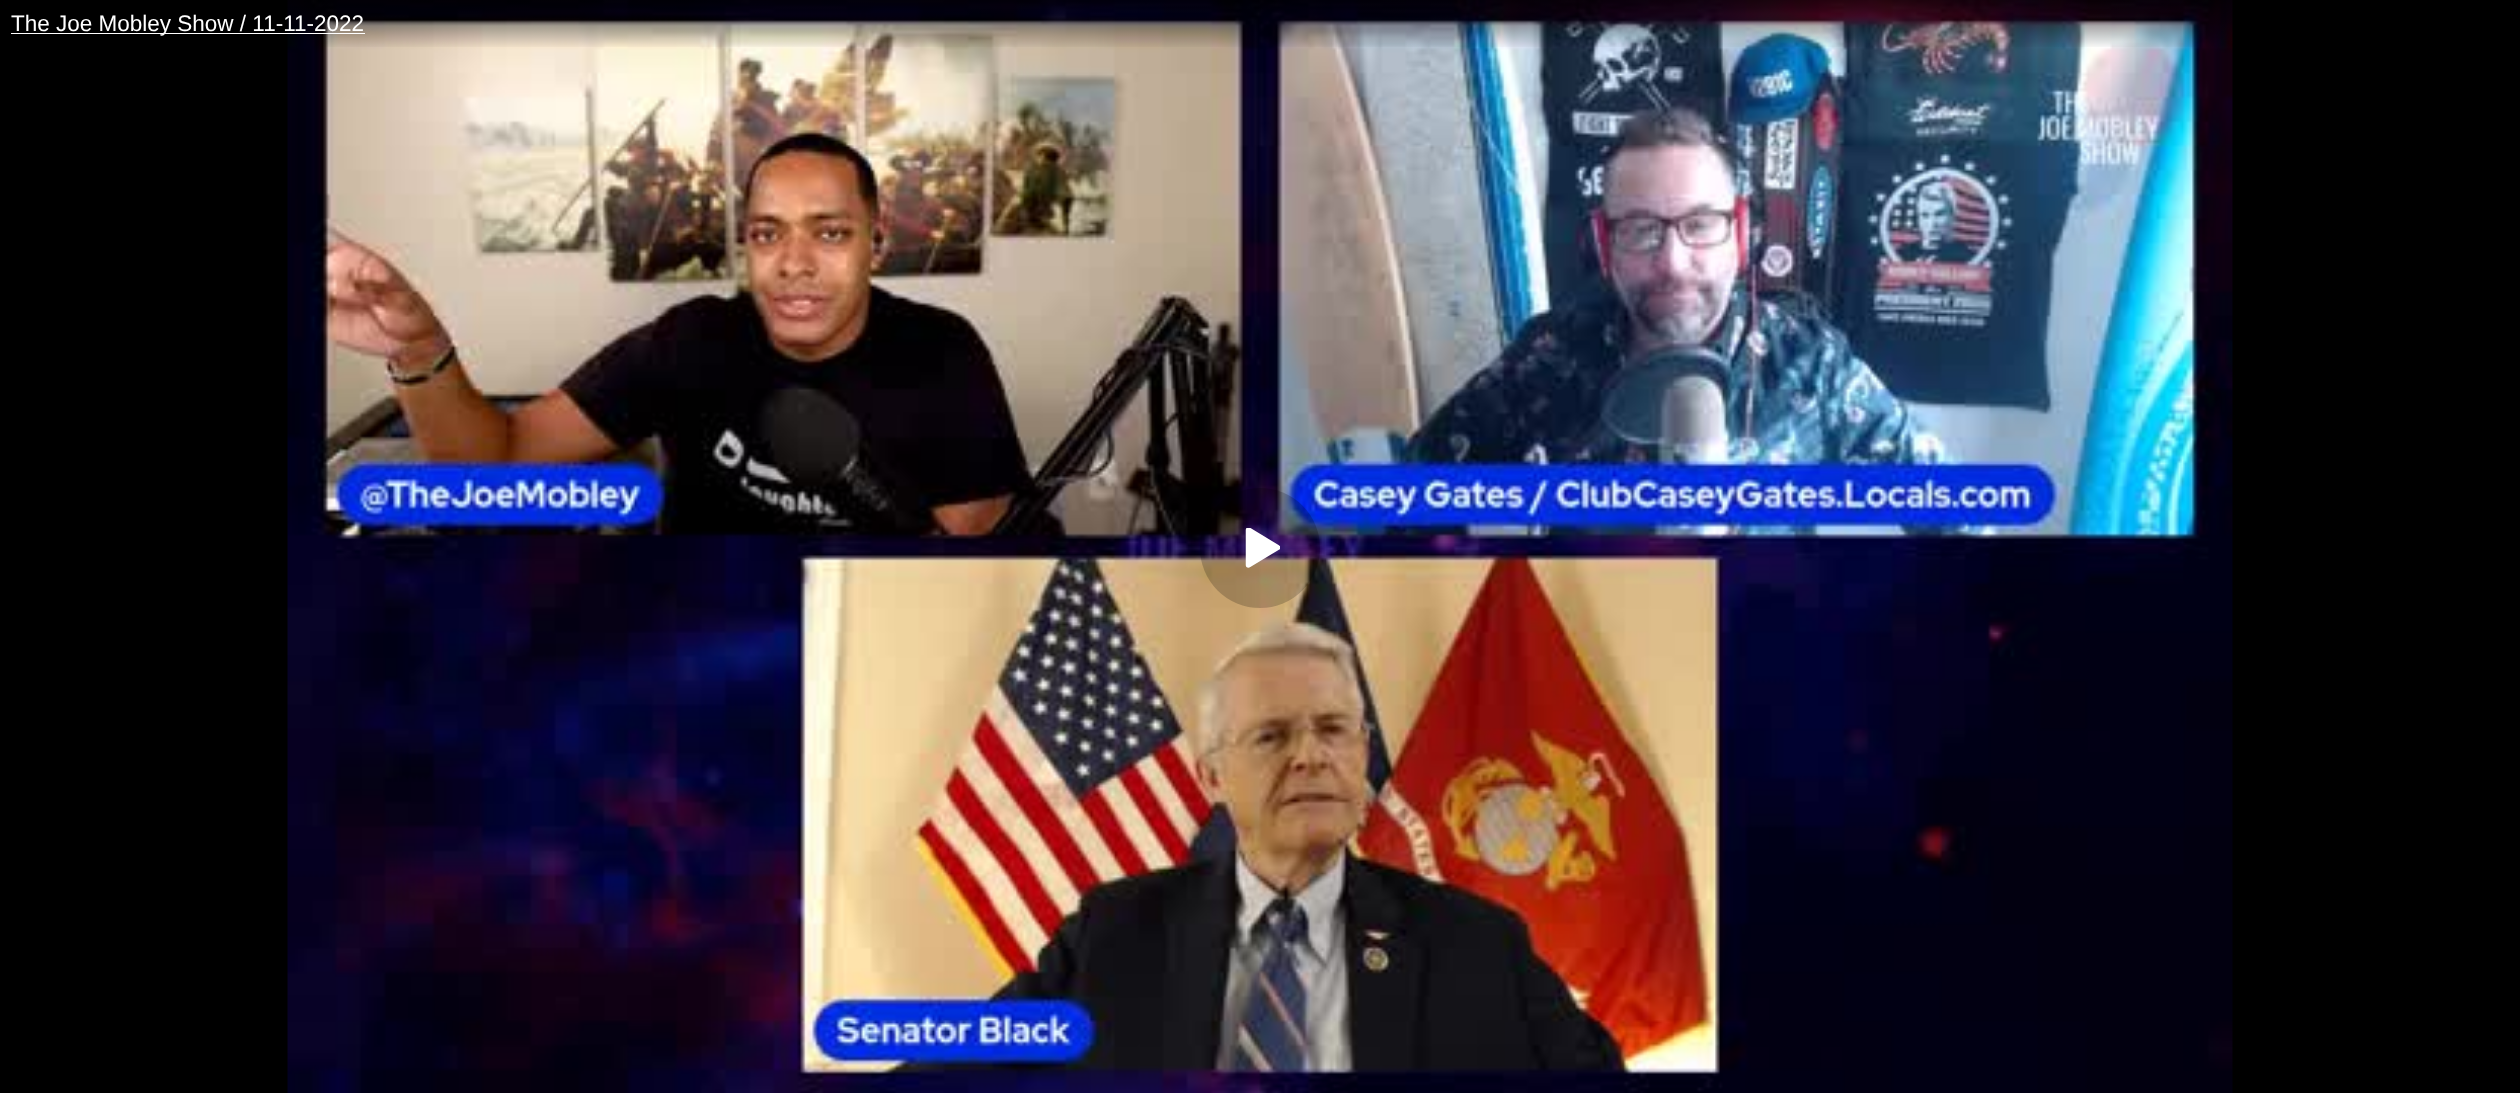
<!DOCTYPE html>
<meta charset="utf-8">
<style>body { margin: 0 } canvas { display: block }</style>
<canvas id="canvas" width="2520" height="1093"></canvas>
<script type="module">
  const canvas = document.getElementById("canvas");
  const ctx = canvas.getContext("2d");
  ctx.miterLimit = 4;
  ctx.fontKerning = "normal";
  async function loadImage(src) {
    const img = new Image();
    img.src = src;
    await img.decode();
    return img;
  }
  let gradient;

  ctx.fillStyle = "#000000";
  ctx.fillRect(0, 0, 2520, 1093);
  ctx.drawImage(await loadImage("img1.png"), 287, 0, 1946, 1093);
  gradient = ctx.createLinearGradient(1260, 0, 1260, 49);
  gradient.addColorStop(0, "rgba(0, 0, 0, 0.7)");
  gradient.addColorStop(1, "rgba(0, 0, 0, 0)");
  ctx.fillStyle = gradient;
  ctx.fillRect(287, 0, 1946, 47);
  ctx.fillStyle = "#ffffff";
  ctx.fillRect(11, 33, 354, 1);
  ctx.font = "22.5px Liberation Sans";
  ctx.fillText("The Joe Mobley Show / 11-11-2022", 11, 31);
  ctx.fillStyle = "rgba(0, 0, 0, 0.2)";
  ctx.beginPath();
  ctx.arc(1260, 548, 60, 0, Math.PI * 2);
  ctx.fill();
  ctx.fillStyle = "#ffffff";
  ctx.beginPath();
  ctx.moveTo(1277.5, 547.5);
  ctx.lineTo(1248.5, 530);
  ctx.lineTo(1248.5, 565);
  ctx.closePath();
  ctx.fill();
  ctx.save();
  ctx.beginPath();
  ctx.rect(1240, 528, 40, 40);
  ctx.clip();
  ctx.beginPath();
  ctx.moveTo(1277.5, 547.5);
  ctx.lineTo(1248.5, 530);
  ctx.lineTo(1248.5, 565);
  ctx.closePath();
  ctx.strokeStyle = "#ffffff";
  ctx.lineWidth = 5.5;
  ctx.lineJoin = "round";
  ctx.stroke();
  ctx.restore();
</script>
